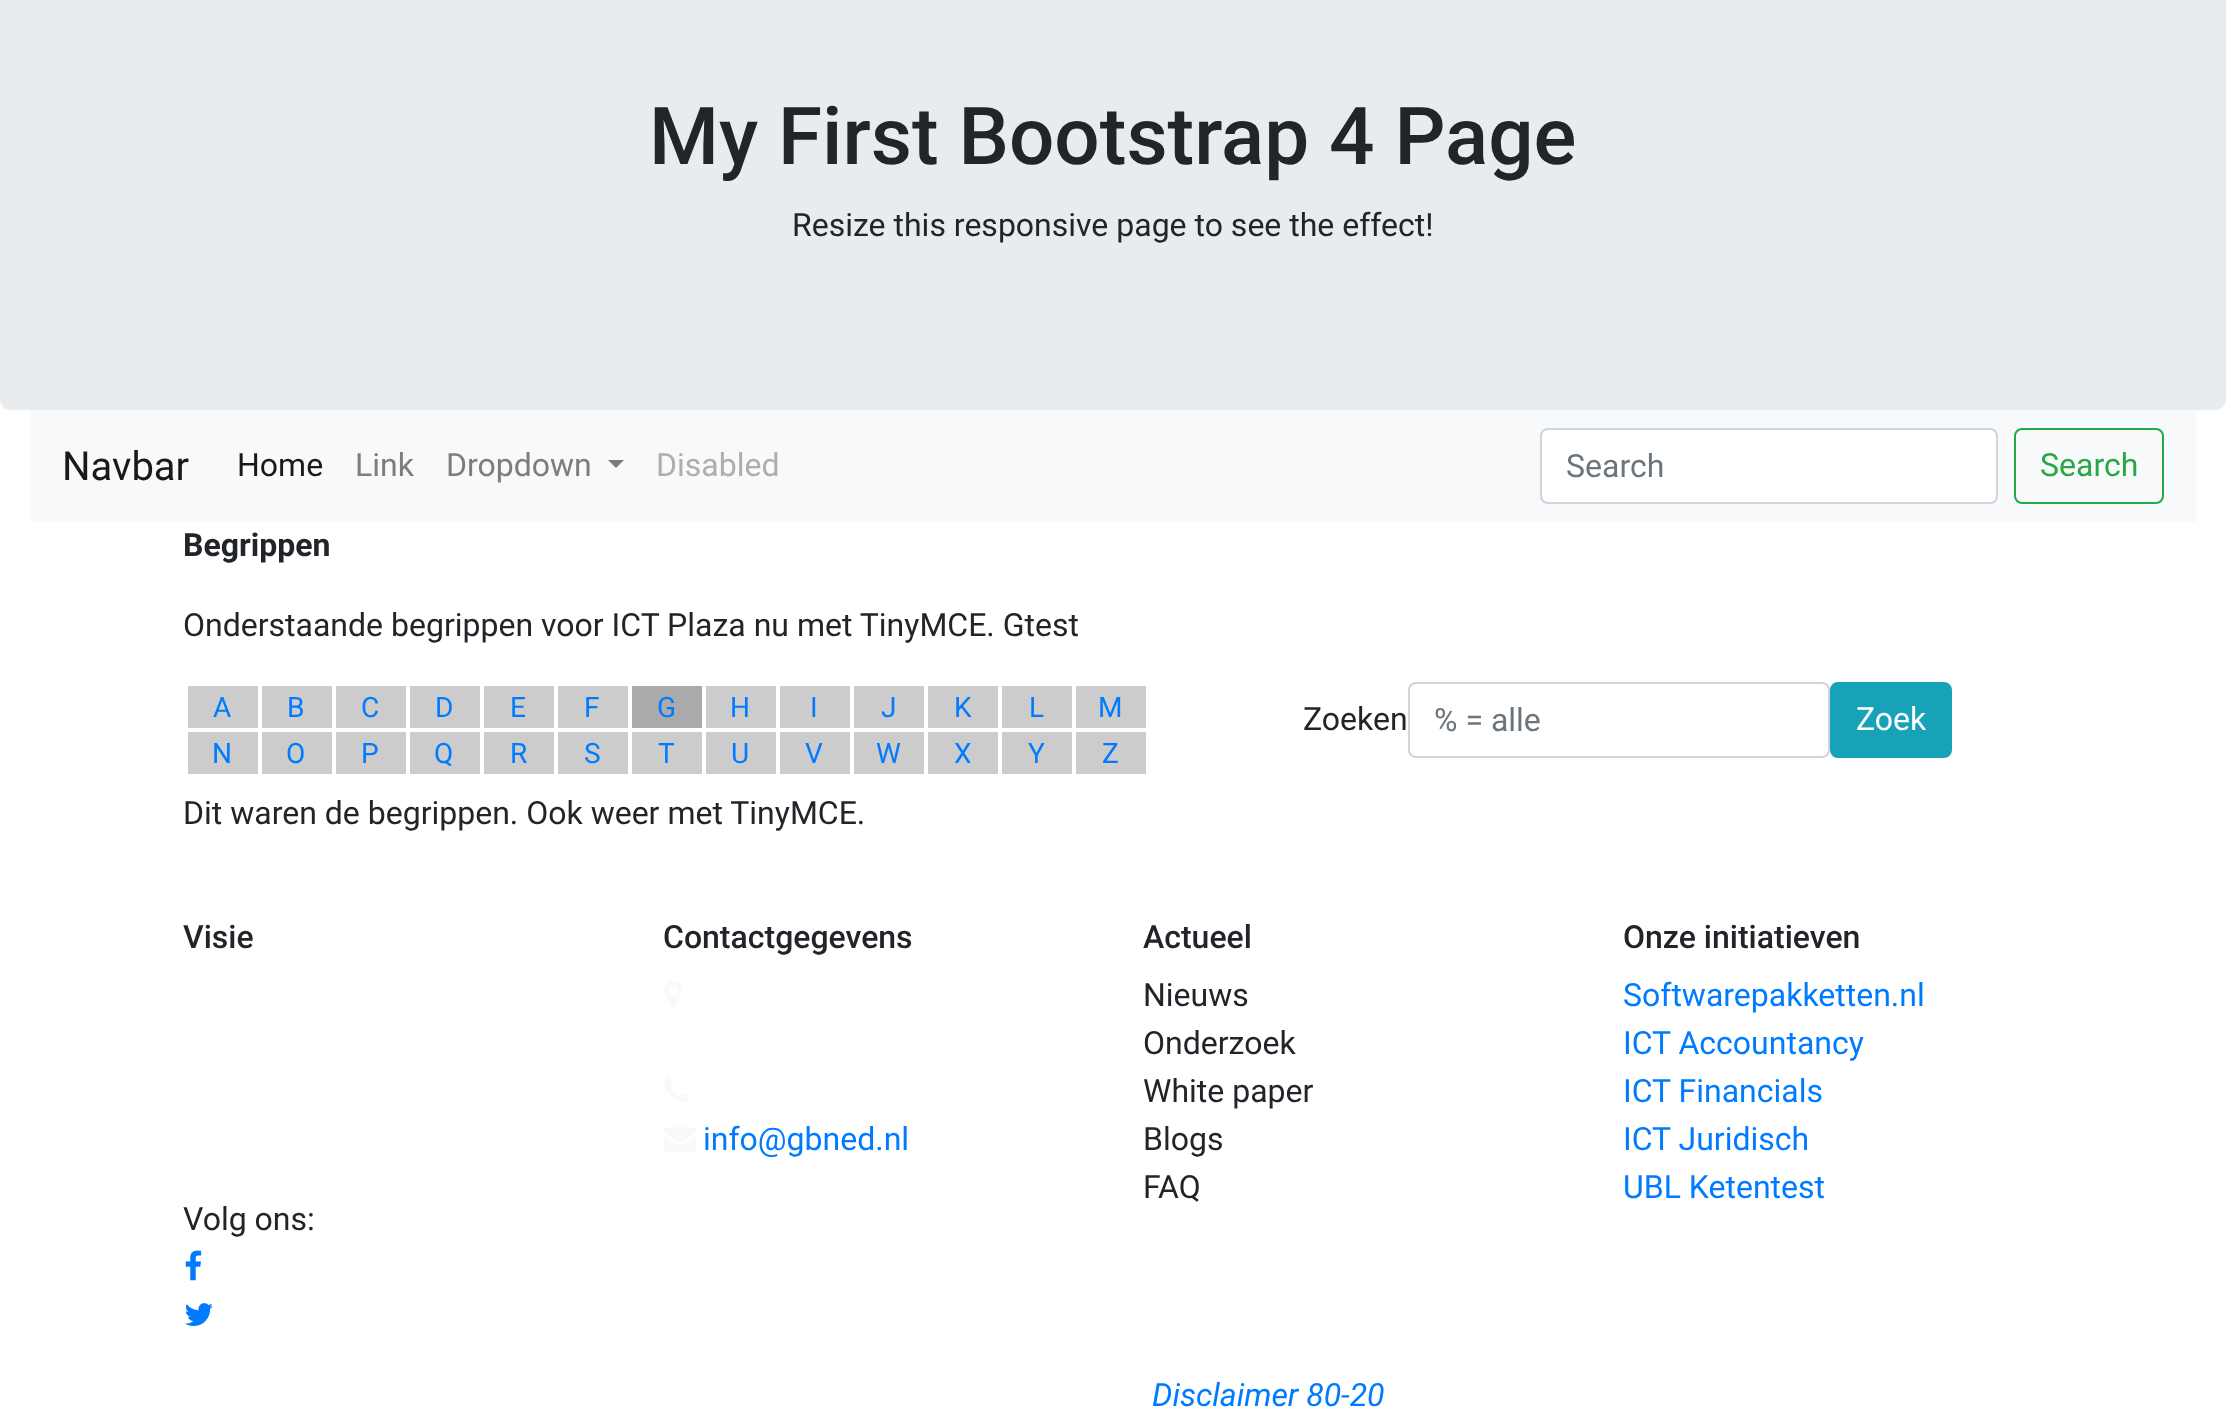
<!DOCTYPE html>
<meta charset="utf-8">
<style>body { margin: 0 } canvas { display: block }</style>
<canvas id="canvas" width="2226" height="1415"></canvas>
<script type="module">
  const canvas = document.getElementById("canvas");
  const ctx = canvas.getContext("2d");
  ctx.miterLimit = 4;
  ctx.fontKerning = "normal";
  async function loadImage(src) {
    const img = new Image();
    img.src = src;
    await img.decode();
    return img;
  }

  ctx.fillStyle = "#ffffff";
  ctx.fillRect(0, 0, 2226, 1415);
  ctx.fillStyle = "#e9ecef";
  ctx.beginPath();
  ctx.roundRect(0, -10, 2226, 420, 10);
  ctx.fill();
  ctx.font = "500 80px Roboto";
  ctx.fillStyle = "#212529";
  ctx.fillText("My First Bootstrap 4 Page", 649, 164);
  ctx.font = "32px Roboto";
  ctx.fillText("Resize this responsive page to see the effect!", 792, 236);
  ctx.fillStyle = "#f8f9fa";
  ctx.fillRect(30, 410, 2166, 112);
  ctx.font = "40px Roboto";
  ctx.fillStyle = "#191919";
  ctx.fillText("Navbar", 62, 480);
  ctx.font = "32px Roboto";
  ctx.fillText("Home", 237, 476);
  ctx.fillStyle = "#7c7d7d";
  ctx.fillText("Link", 355, 476);
  ctx.fillText("Dropdown", 446, 476);
  ctx.beginPath();
  ctx.moveTo(608, 460);
  ctx.lineTo(624, 460);
  ctx.lineTo(616, 468);
  ctx.closePath();
  ctx.fill();
  ctx.fillStyle = "#aeaeaf";
  ctx.fillText("Disabled", 656, 476);
  ctx.fillStyle = "#ffffff";
  ctx.beginPath();
  ctx.roundRect(1541, 429, 456, 74, 7);
  ctx.fill();
  ctx.strokeStyle = "#ced4da";
  ctx.lineWidth = 2;
  ctx.stroke();
  ctx.fillStyle = "#6c757d";
  ctx.fillText("Search", 1566, 477);
  ctx.beginPath();
  ctx.roundRect(2015, 429, 148, 74, 7);
  ctx.strokeStyle = "#28a745";
  ctx.stroke();
  ctx.fillStyle = "#28a745";
  ctx.fillText("Search", 2040, 476);
  ctx.font = "bold 32px Roboto";
  ctx.fillStyle = "#212529";
  ctx.fillText("Begrippen", 183, 556);
  ctx.font = "32px Roboto";
  ctx.fillText("Onderstaande begrippen voor ICT Plaza nu met TinyMCE. Gtest", 183, 636);
  ctx.fillStyle = "#cccccc";
  ctx.fillRect(188, 686, 70, 42);
  ctx.font = "28px Roboto";
  ctx.fillStyle = "#007bff";
  ctx.fillText("A", 213, 717);
  ctx.fillStyle = "#cccccc";
  ctx.fillRect(262, 686, 70, 42);
  ctx.fillStyle = "#007bff";
  ctx.fillText("B", 287, 717);
  ctx.fillStyle = "#cccccc";
  ctx.fillRect(336, 686, 70, 42);
  ctx.fillStyle = "#007bff";
  ctx.fillText("C", 361, 717);
  ctx.fillStyle = "#cccccc";
  ctx.fillRect(410, 686, 70, 42);
  ctx.fillStyle = "#007bff";
  ctx.fillText("D", 435, 717);
  ctx.fillStyle = "#cccccc";
  ctx.fillRect(484, 686, 70, 42);
  ctx.fillStyle = "#007bff";
  ctx.fillText("E", 510, 717);
  ctx.fillStyle = "#cccccc";
  ctx.fillRect(558, 686, 70, 42);
  ctx.fillStyle = "#007bff";
  ctx.fillText("F", 584, 717);
  ctx.fillStyle = "#aaaaaa";
  ctx.fillRect(632, 686, 70, 42);
  ctx.fillStyle = "#007bff";
  ctx.fillText("G", 657, 717);
  ctx.fillStyle = "#cccccc";
  ctx.fillRect(706, 686, 70, 42);
  ctx.fillStyle = "#007bff";
  ctx.fillText("H", 730, 717);
  ctx.fillStyle = "#cccccc";
  ctx.fillRect(780, 686, 70, 42);
  ctx.fillStyle = "#007bff";
  ctx.fillText("I", 810, 717);
  ctx.fillStyle = "#cccccc";
  ctx.fillRect(854, 686, 70, 42);
  ctx.fillStyle = "#007bff";
  ctx.fillText("J", 881, 717);
  ctx.fillStyle = "#cccccc";
  ctx.fillRect(928, 686, 70, 42);
  ctx.fillStyle = "#007bff";
  ctx.fillText("K", 954, 717);
  ctx.fillStyle = "#cccccc";
  ctx.fillRect(1002, 686, 70, 42);
  ctx.fillStyle = "#007bff";
  ctx.fillText("L", 1029, 717);
  ctx.fillStyle = "#cccccc";
  ctx.fillRect(1076, 686, 70, 42);
  ctx.fillStyle = "#007bff";
  ctx.fillText("M", 1098, 717);
  ctx.fillStyle = "#cccccc";
  ctx.fillRect(188, 732, 70, 42);
  ctx.fillStyle = "#007bff";
  ctx.fillText("N", 212, 763);
  ctx.fillStyle = "#cccccc";
  ctx.fillRect(262, 732, 70, 42);
  ctx.fillStyle = "#007bff";
  ctx.fillText("O", 286, 763);
  ctx.fillStyle = "#cccccc";
  ctx.fillRect(336, 732, 70, 42);
  ctx.fillStyle = "#007bff";
  ctx.fillText("P", 361, 763);
  ctx.fillStyle = "#cccccc";
  ctx.fillRect(410, 732, 70, 42);
  ctx.fillStyle = "#007bff";
  ctx.fillText("Q", 434, 763);
  ctx.fillStyle = "#cccccc";
  ctx.fillRect(484, 732, 70, 42);
  ctx.fillStyle = "#007bff";
  ctx.fillText("R", 510, 763);
  ctx.fillStyle = "#cccccc";
  ctx.fillRect(558, 732, 70, 42);
  ctx.fillStyle = "#007bff";
  ctx.fillText("S", 584, 763);
  ctx.fillStyle = "#cccccc";
  ctx.fillRect(632, 732, 70, 42);
  ctx.fillStyle = "#007bff";
  ctx.fillText("T", 658, 763);
  ctx.fillStyle = "#cccccc";
  ctx.fillRect(706, 732, 70, 42);
  ctx.fillStyle = "#007bff";
  ctx.fillText("U", 731, 763);
  ctx.fillStyle = "#cccccc";
  ctx.fillRect(780, 732, 70, 42);
  ctx.fillStyle = "#007bff";
  ctx.fillText("V", 805, 763);
  ctx.fillStyle = "#cccccc";
  ctx.fillRect(854, 732, 70, 42);
  ctx.fillStyle = "#007bff";
  ctx.fillText("W", 876, 763);
  ctx.fillStyle = "#cccccc";
  ctx.fillRect(928, 732, 70, 42);
  ctx.fillStyle = "#007bff";
  ctx.fillText("X", 954, 763);
  ctx.fillStyle = "#cccccc";
  ctx.fillRect(1002, 732, 70, 42);
  ctx.fillStyle = "#007bff";
  ctx.fillText("Y", 1028, 763);
  ctx.fillStyle = "#cccccc";
  ctx.fillRect(1076, 732, 70, 42);
  ctx.fillStyle = "#007bff";
  ctx.fillText("Z", 1102, 763);
  ctx.font = "32px Roboto";
  ctx.fillStyle = "#212529";
  ctx.fillText("Zoeken", 1303, 730);
  ctx.beginPath();
  ctx.roundRect(1409, 683, 420, 74, 7);
  ctx.strokeStyle = "#ced4da";
  ctx.stroke();
  ctx.fillStyle = "#6c757d";
  ctx.fillText("% = alle", 1434, 731);
  ctx.fillStyle = "#17a2b8";
  ctx.beginPath();
  ctx.roundRect(1831, 683, 120, 74, 7);
  ctx.fill();
  ctx.strokeStyle = "#17a2b8";
  ctx.stroke();
  ctx.fillStyle = "#ffffff";
  ctx.fillText("Zoek", 1856, 730);
  ctx.fillStyle = "#212529";
  ctx.fillText("Dit waren de begrippen. Ook weer met TinyMCE.", 183, 824);
  ctx.font = "500 32px Roboto";
  ctx.fillText("Visie", 183, 948);
  ctx.font = "32px Roboto";
  ctx.fillText("Volg ons:", 183, 1230);
  ctx.drawImage(await loadImage("img1.png"), 185, 1250, 17, 31);
  ctx.drawImage(await loadImage("img2.png"), 185, 1303, 28, 23);
  ctx.font = "500 32px Roboto";
  ctx.fillText("Contactgegevens", 663, 948);
  ctx.drawImage(await loadImage("img3.png"), 664, 981, 18, 27);
  ctx.drawImage(await loadImage("img4.png"), 664, 1077, 25, 25);
  ctx.drawImage(await loadImage("img5.png"), 664, 1127, 32, 25);
  ctx.font = "32px Roboto";
  ctx.fillStyle = "#007bff";
  ctx.fillText("info@gbned.nl", 703, 1150);
  ctx.font = "500 32px Roboto";
  ctx.fillStyle = "#212529";
  ctx.fillText("Actueel", 1143, 948);
  ctx.font = "32px Roboto";
  ctx.fillText("Nieuws", 1143, 1006);
  ctx.fillText("Onderzoek", 1143, 1054);
  ctx.fillText("White paper", 1143, 1102);
  ctx.fillText("Blogs", 1143, 1150);
  ctx.fillText("FAQ", 1143, 1198);
  ctx.font = "500 32px Roboto";
  ctx.fillText("Onze initiatieven", 1623, 948);
  ctx.font = "32px Roboto";
  ctx.fillStyle = "#007bff";
  ctx.fillText("Softwarepakketten.nl", 1623, 1006);
  ctx.fillText("ICT Accountancy", 1623, 1054);
  ctx.fillText("ICT Financials", 1623, 1102);
  ctx.fillText("ICT Juridisch", 1623, 1150);
  ctx.fillText("UBL Ketentest", 1623, 1198);
  ctx.font = "italic 32px Roboto";
  ctx.fillText("Disclaimer 80-20", 1152, 1406);
</script>
